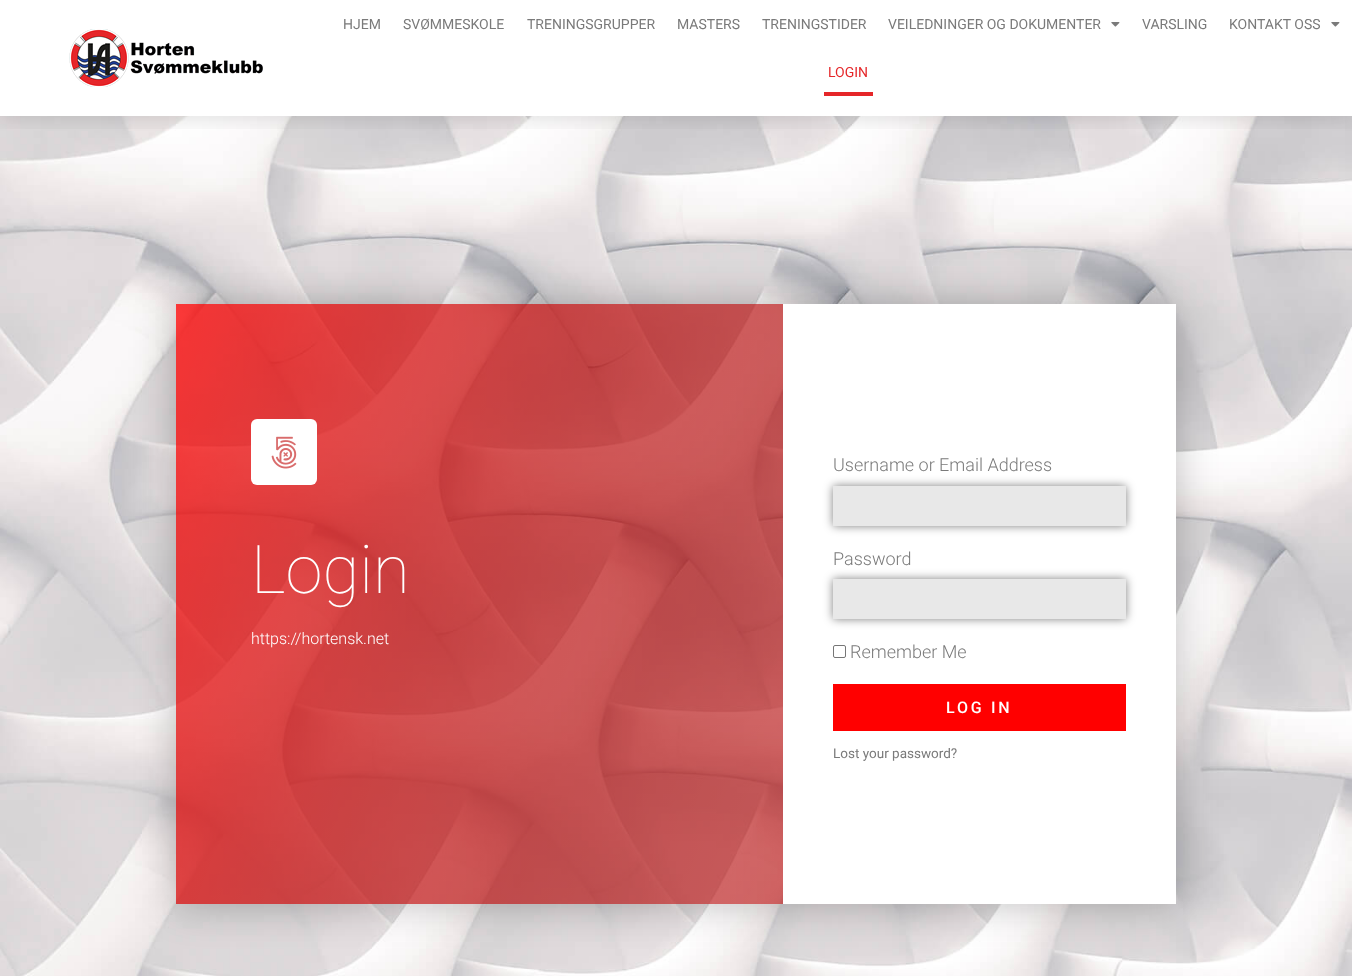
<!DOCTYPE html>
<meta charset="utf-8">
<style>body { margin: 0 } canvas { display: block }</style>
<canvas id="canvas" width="1352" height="976"></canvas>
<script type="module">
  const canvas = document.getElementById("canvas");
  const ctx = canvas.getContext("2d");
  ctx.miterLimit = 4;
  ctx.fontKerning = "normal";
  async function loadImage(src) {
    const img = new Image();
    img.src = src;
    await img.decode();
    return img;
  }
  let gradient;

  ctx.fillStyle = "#ffffff";
  ctx.fillRect(0, 0, 1352, 976);
  ctx.drawImage(await loadImage("img3.png"), 0, 116, 1352, 860);
  ctx.save();
  ctx.beginPath();
  ctx.rect(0, 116, 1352, 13);
  ctx.clip();
  ctx.fillStyle = "rgba(0, 0, 0, 0.15)";
  ctx.filter = "blur(12px)";
  ctx.beginPath();
  ctx.rect(0, 0, 1352, 116);
  ctx.fill();
  ctx.filter = "none";
  ctx.restore();
  ctx.drawImage(await loadImage("img1.png"), 69, 29, 194, 58);
  ctx.font = "14px Roboto";
  ctx.fillStyle = "#7a7a7a";
  ctx.fillText("HJEM", 343, 29);
  ctx.fillText("SVØMMESKOLE", 403, 29);
  ctx.fillText("TRENINGSGRUPPER", 527, 29);
  ctx.fillText("MASTERS", 677, 29);
  ctx.fillText("TRENINGSTIDER", 762, 29);
  ctx.fillText("VEILEDNINGER OG DOKUMENTER", 888, 29);
  ctx.drawImage(await loadImage("img2.png"), 1111, 22, 9, 5);
  ctx.fillText("VARSLING", 1142, 29);
  ctx.fillText("KONTAKT OSS", 1229, 29);
  ctx.drawImage(await loadImage("img2.png"), 1331, 22, 9, 5);
  ctx.fillStyle = "#e52629";
  ctx.fillText("LOGIN", 828, 77);
  ctx.fillRect(824, 92, 49, 4);
  ctx.save();
  ctx.beginPath();
  ctx.moveTo(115, 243);
  ctx.lineTo(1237, 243);
  ctx.lineTo(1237, 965);
  ctx.lineTo(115, 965);
  ctx.closePath();
  ctx.moveTo(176, 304);
  ctx.lineTo(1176, 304);
  ctx.lineTo(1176, 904);
  ctx.lineTo(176, 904);
  ctx.closePath();
  ctx.clip("evenodd");
  ctx.fillStyle = "rgba(0, 0, 0, 0.24)";
  ctx.filter = "blur(20px)";
  ctx.beginPath();
  ctx.rect(176, 304, 1000, 600);
  ctx.fill();
  ctx.filter = "none";
  ctx.restore();
  ctx.fillStyle = "rgba(255, 0, 0, 0.5)";
  ctx.fillRect(176, 304, 607, 600);
  gradient = ctx.createLinearGradient(844, 737, 115, 471);
  gradient.addColorStop(0, "rgba(0, 0, 0, 0.17)");
  gradient.addColorStop(1, "rgba(255, 0, 0, 0.52)");
  ctx.fillStyle = gradient;
  ctx.fillRect(176, 304, 607, 600);
  ctx.fillStyle = "#ffffff";
  ctx.beginPath();
  ctx.roundRect(251, 419, 66, 66, 6);
  ctx.fill();
  ctx.drawImage(await loadImage("img4.png"), 271, 436, 26, 33);
  ctx.font = "100 67px Roboto";
  ctx.fillText("Login", 251, 593);
  ctx.font = "300 16px Roboto";
  ctx.fillText("https://hortensk.net", 251, 644);
  ctx.fillRect(783, 304, 393, 600);
  ctx.font = "300 18px Roboto";
  ctx.fillStyle = "#7a7a7a";
  ctx.fillText("Username or Email Address", 833, 471);
  ctx.fillStyle = "rgba(0, 0, 0, 0.5)";
  ctx.filter = "blur(5px)";
  ctx.beginPath();
  ctx.rect(833, 486, 293, 40);
  ctx.fill();
  ctx.filter = "none";
  ctx.fillStyle = "#e8e8e8";
  ctx.fillRect(833, 486, 293, 40);
  ctx.fillStyle = "#7a7a7a";
  ctx.fillText("Password", 833, 565);
  ctx.fillStyle = "rgba(0, 0, 0, 0.5)";
  ctx.filter = "blur(5px)";
  ctx.beginPath();
  ctx.rect(833, 579, 293, 40);
  ctx.fill();
  ctx.filter = "none";
  ctx.fillStyle = "#e8e8e8";
  ctx.fillRect(833, 579, 293, 40);
  ctx.beginPath();
  ctx.roundRect(833.5, 645.5, 12, 12, 1.5);
  ctx.strokeStyle = "#767676";
  ctx.stroke();
  ctx.fillStyle = "#7a7a7a";
  ctx.fillText("Remember Me", 850, 658);
  ctx.fillStyle = "#ff0000";
  ctx.fillRect(833, 684, 293, 47);
  ctx.letterSpacing = "2.75px";
  ctx.font = "500 16px Roboto";
  ctx.fillStyle = "#ffffff";
  ctx.fillText("LOG IN", 946, 713);
  ctx.letterSpacing = "0px";
  ctx.font = "13.5px Roboto";
  ctx.fillStyle = "#7a7a7a";
  ctx.fillText("Lost your password?", 833, 758);
</script>
